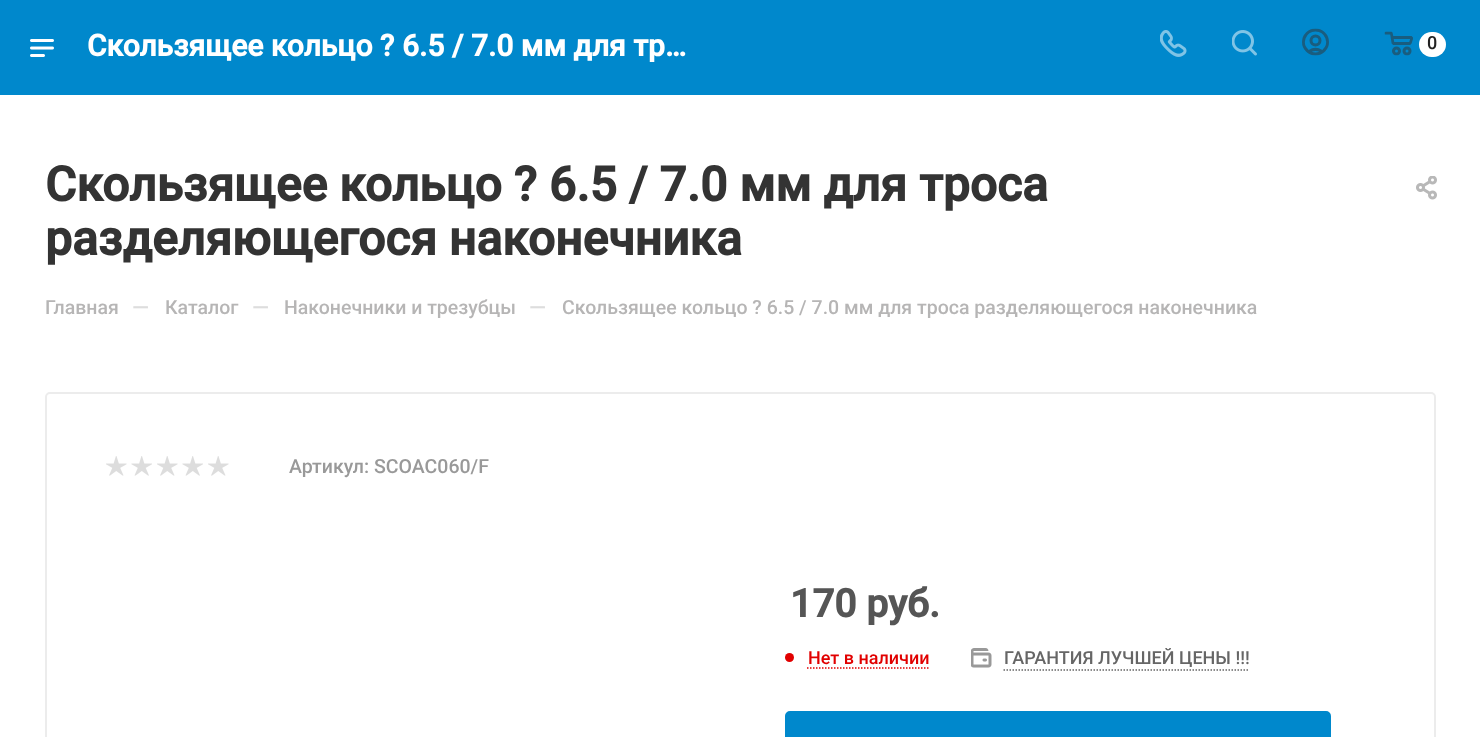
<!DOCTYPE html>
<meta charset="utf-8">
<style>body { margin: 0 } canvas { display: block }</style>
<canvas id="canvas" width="1480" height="737"></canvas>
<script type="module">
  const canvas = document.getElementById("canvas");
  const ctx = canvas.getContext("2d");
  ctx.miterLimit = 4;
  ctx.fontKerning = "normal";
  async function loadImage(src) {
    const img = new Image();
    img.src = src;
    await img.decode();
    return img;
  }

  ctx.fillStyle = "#ffffff";
  ctx.fillRect(0, 0, 1480, 737);
  ctx.fillStyle = "#0088cc";
  ctx.fillRect(0, 0, 1480, 95);
  ctx.drawImage(await loadImage("img1.png"), 30, 39, 24, 18);
  ctx.font = "bold 30px Roboto";
  ctx.fillStyle = "#ffffff";
  ctx.fillText("Скользящее кольцо ? 6.5 / 7.0 мм для тр…", 87, 56);
  ctx.drawImage(await loadImage("img2.png"), 1160, 30, 27, 27);
  ctx.drawImage(await loadImage("img3.png"), 1232, 30, 25, 26);
  ctx.drawImage(await loadImage("img4.png"), 1302, 28, 27, 28);
  ctx.drawImage(await loadImage("img5.png"), 1384, 31, 29, 25);
  ctx.beginPath();
  ctx.roundRect(1419, 32, 27, 25, 12.5);
  ctx.fill();
  ctx.font = "500 18px Roboto";
  ctx.fillStyle = "#222222";
  ctx.fillText("0", 1427, 49);
  ctx.font = "bold 48px Roboto";
  ctx.fillStyle = "#333333";
  ctx.fillText("Скользящее кольцо ? 6.5 / 7.0 мм для троса", 45, 201);
  ctx.fillText("разделяющегося наконечника", 45, 255);
  ctx.drawImage(await loadImage("img6.png"), 1416, 176, 21, 24);
  ctx.font = "500 19.5px Roboto";
  ctx.fillStyle = "#b6b5b5";
  ctx.fillText("Главная", 45, 314);
  ctx.font = "500 22px Roboto";
  ctx.fillStyle = "#dddddd";
  ctx.fillText("—", 132, 315);
  ctx.font = "500 19.5px Roboto";
  ctx.fillStyle = "#b6b5b5";
  ctx.fillText("Каталог", 165, 314);
  ctx.font = "500 22px Roboto";
  ctx.fillStyle = "#dddddd";
  ctx.fillText("—", 252, 315);
  ctx.font = "500 19.5px Roboto";
  ctx.fillStyle = "#b6b5b5";
  ctx.fillText("Наконечники и трезубцы", 284, 314);
  ctx.font = "500 22px Roboto";
  ctx.fillStyle = "#dddddd";
  ctx.fillText("—", 529, 315);
  ctx.font = "500 19.5px Roboto";
  ctx.fillStyle = "#b6b5b5";
  ctx.fillText("Скользящее кольцо ? 6.5 / 7.0 мм для троса разделяющегося наконечника", 562, 314);
  ctx.beginPath();
  ctx.roundRect(46, 393, 1389, 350, 4);
  ctx.strokeStyle = "#ececec";
  ctx.lineWidth = 2;
  ctx.stroke();
  ctx.drawImage(await loadImage("img7.png"), 106, 456, 21, 20);
  ctx.drawImage(await loadImage("img8.png"), 131, 456, 21, 20);
  ctx.drawImage(await loadImage("img7.png"), 157, 456, 21, 20);
  ctx.drawImage(await loadImage("img8.png"), 182, 456, 21, 20);
  ctx.drawImage(await loadImage("img7.png"), 208, 456, 21, 20);
  ctx.fillStyle = "#999999";
  ctx.fillText("Артикул: SCOAC060/F", 289, 473);
  ctx.font = "bold 39px Roboto";
  ctx.fillStyle = "#555555";
  ctx.fillText("170 руб.", 790, 617);
  ctx.fillStyle = "#e10000";
  ctx.beginPath();
  ctx.arc(789.5, 657.5, 4.5, 0, Math.PI * 2);
  ctx.fill();
  ctx.font = "500 18px Roboto";
  ctx.fillText("Нет в наличии", 808, 664);
  ctx.beginPath();
  ctx.moveTo(807, 668);
  ctx.lineTo(928.5, 668);
  ctx.strokeStyle = "#e10000";
  ctx.lineWidth = 1.5;
  ctx.setLineDash([1.5, 1.5]);
  ctx.stroke();
  ctx.drawImage(await loadImage("img9.png"), 971, 648, 21, 20);
  ctx.fillStyle = "#666666";
  ctx.fillText("ГАРАНТИЯ ЛУЧШЕЙ ЦЕНЫ !!!", 1004, 664);
  ctx.beginPath();
  ctx.moveTo(1003.5, 670);
  ctx.lineTo(1249.5, 670);
  ctx.strokeStyle = "#666666";
  ctx.stroke();
  ctx.fillStyle = "#0088cc";
  ctx.beginPath();
  ctx.roundRect(786, 712, 544, 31, 4);
  ctx.fill();
  ctx.strokeStyle = "#0088cc";
  ctx.lineWidth = 2;
  ctx.setLineDash([]);
  ctx.stroke();
</script>
